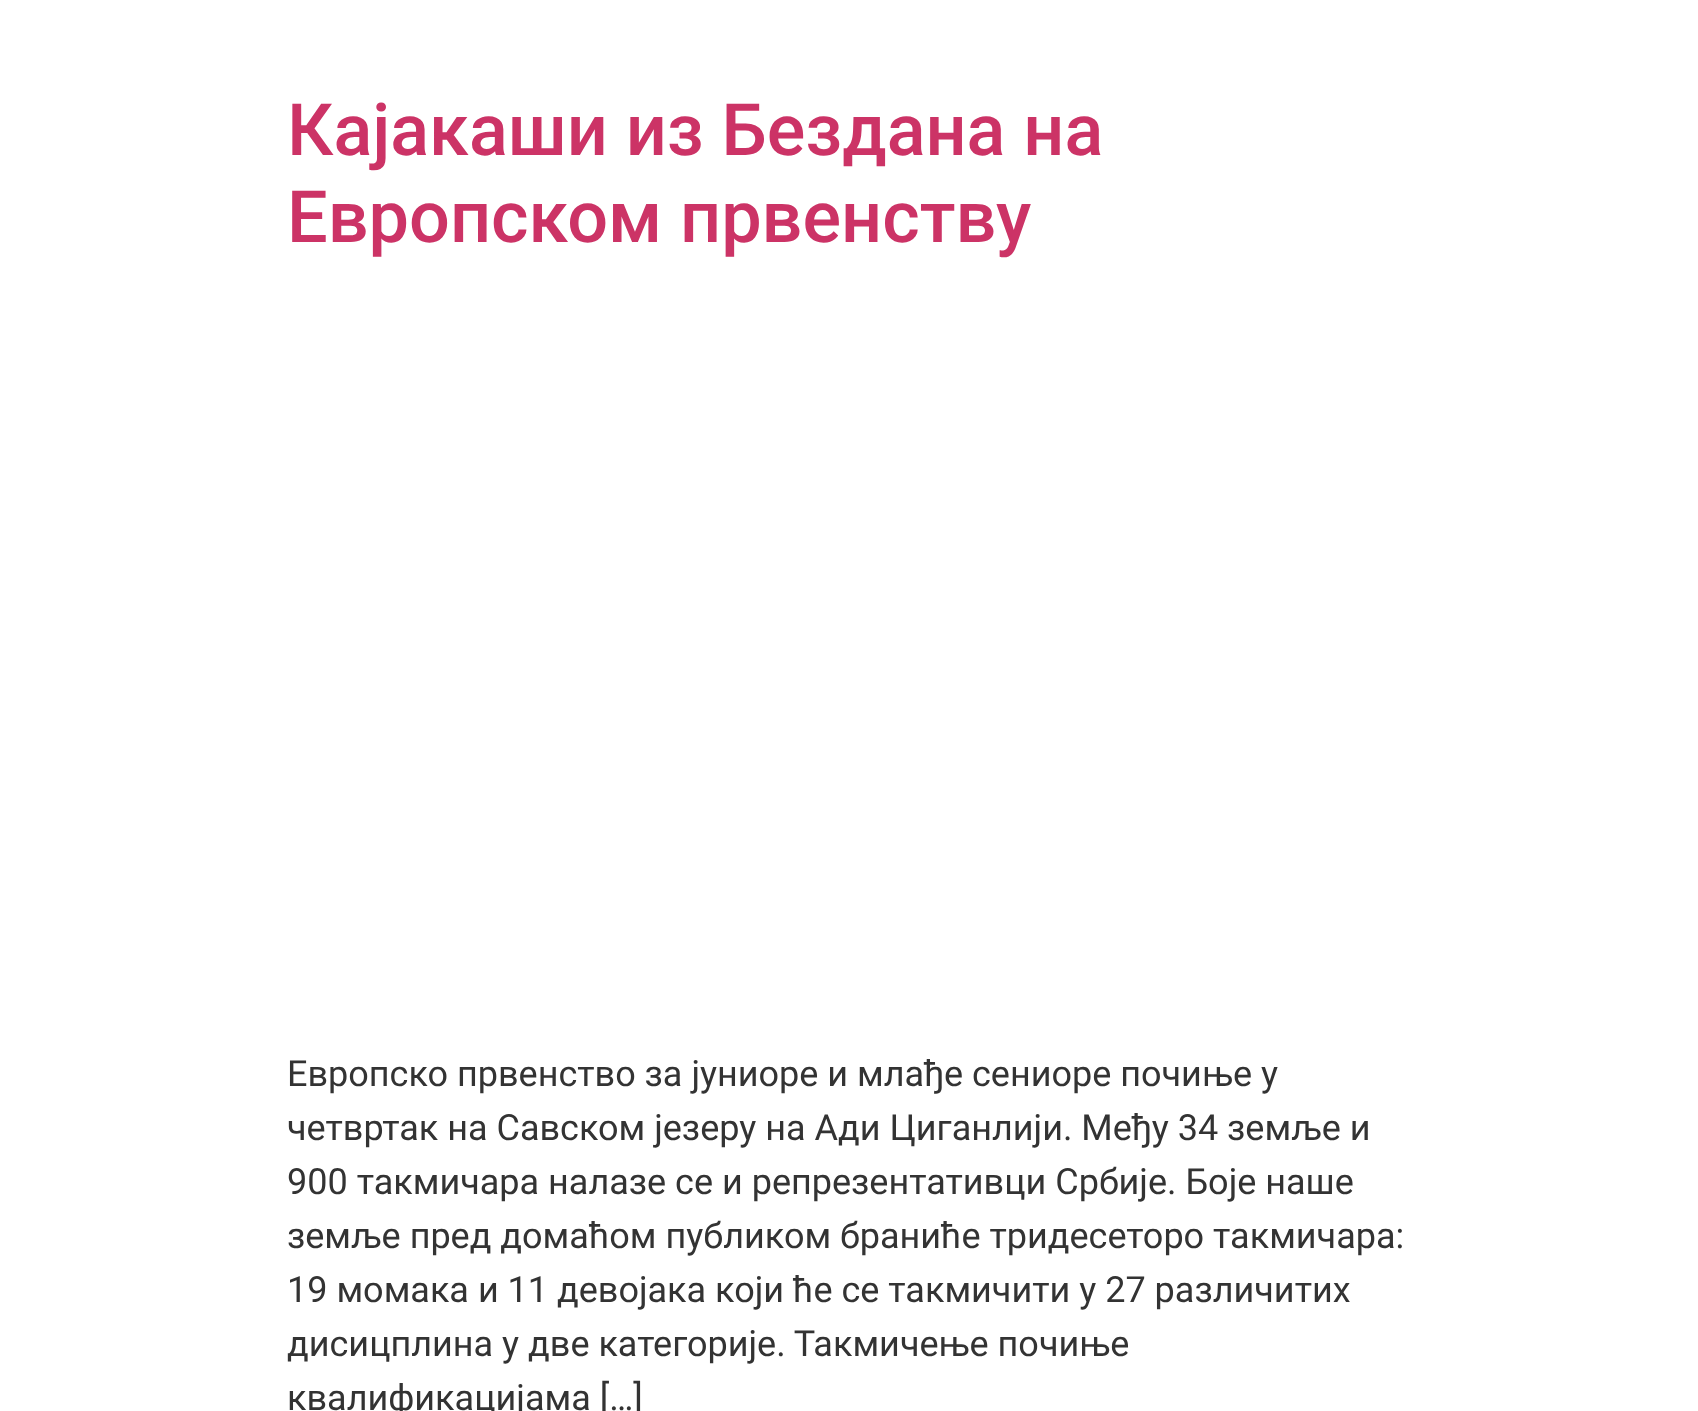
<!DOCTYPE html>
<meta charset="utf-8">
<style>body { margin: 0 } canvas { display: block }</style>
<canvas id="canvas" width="1698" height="1411"></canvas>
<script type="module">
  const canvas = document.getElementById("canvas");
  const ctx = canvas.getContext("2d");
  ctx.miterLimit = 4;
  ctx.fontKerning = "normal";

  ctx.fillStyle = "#ffffff";
  ctx.fillRect(0, 0, 1698, 1411);
  ctx.font = "500 72px Roboto";
  ctx.fillStyle = "#cc3366";
  ctx.fillText("Кајакаши из Бездана на", 287, 155);
  ctx.fillText("Европском првенству", 287, 242);
  ctx.font = "36px Roboto";
  ctx.fillStyle = "#333333";
  ctx.fillText("Европско првенство за јуниоре и млађе сениоре почиње у", 287, 1086);
  ctx.fillText("четвртак на Савском језеру на Ади Циганлији. Међу 34 земље и", 287, 1140);
  ctx.fillText("900 такмичара налазе се и репрезентативци Србије. Боје наше", 287, 1194);
  ctx.fillText("земље пред домаћом публиком браниће тридесеторо такмичара:", 287, 1248);
  ctx.fillText("19 момака и 11 девојака који ће се такмичити у 27 различитих", 287, 1302);
  ctx.fillText("дисицплина у две категорије. Такмичење почиње", 287, 1356);
  ctx.fillText("квалификацијама […]", 287, 1410);
</script>
